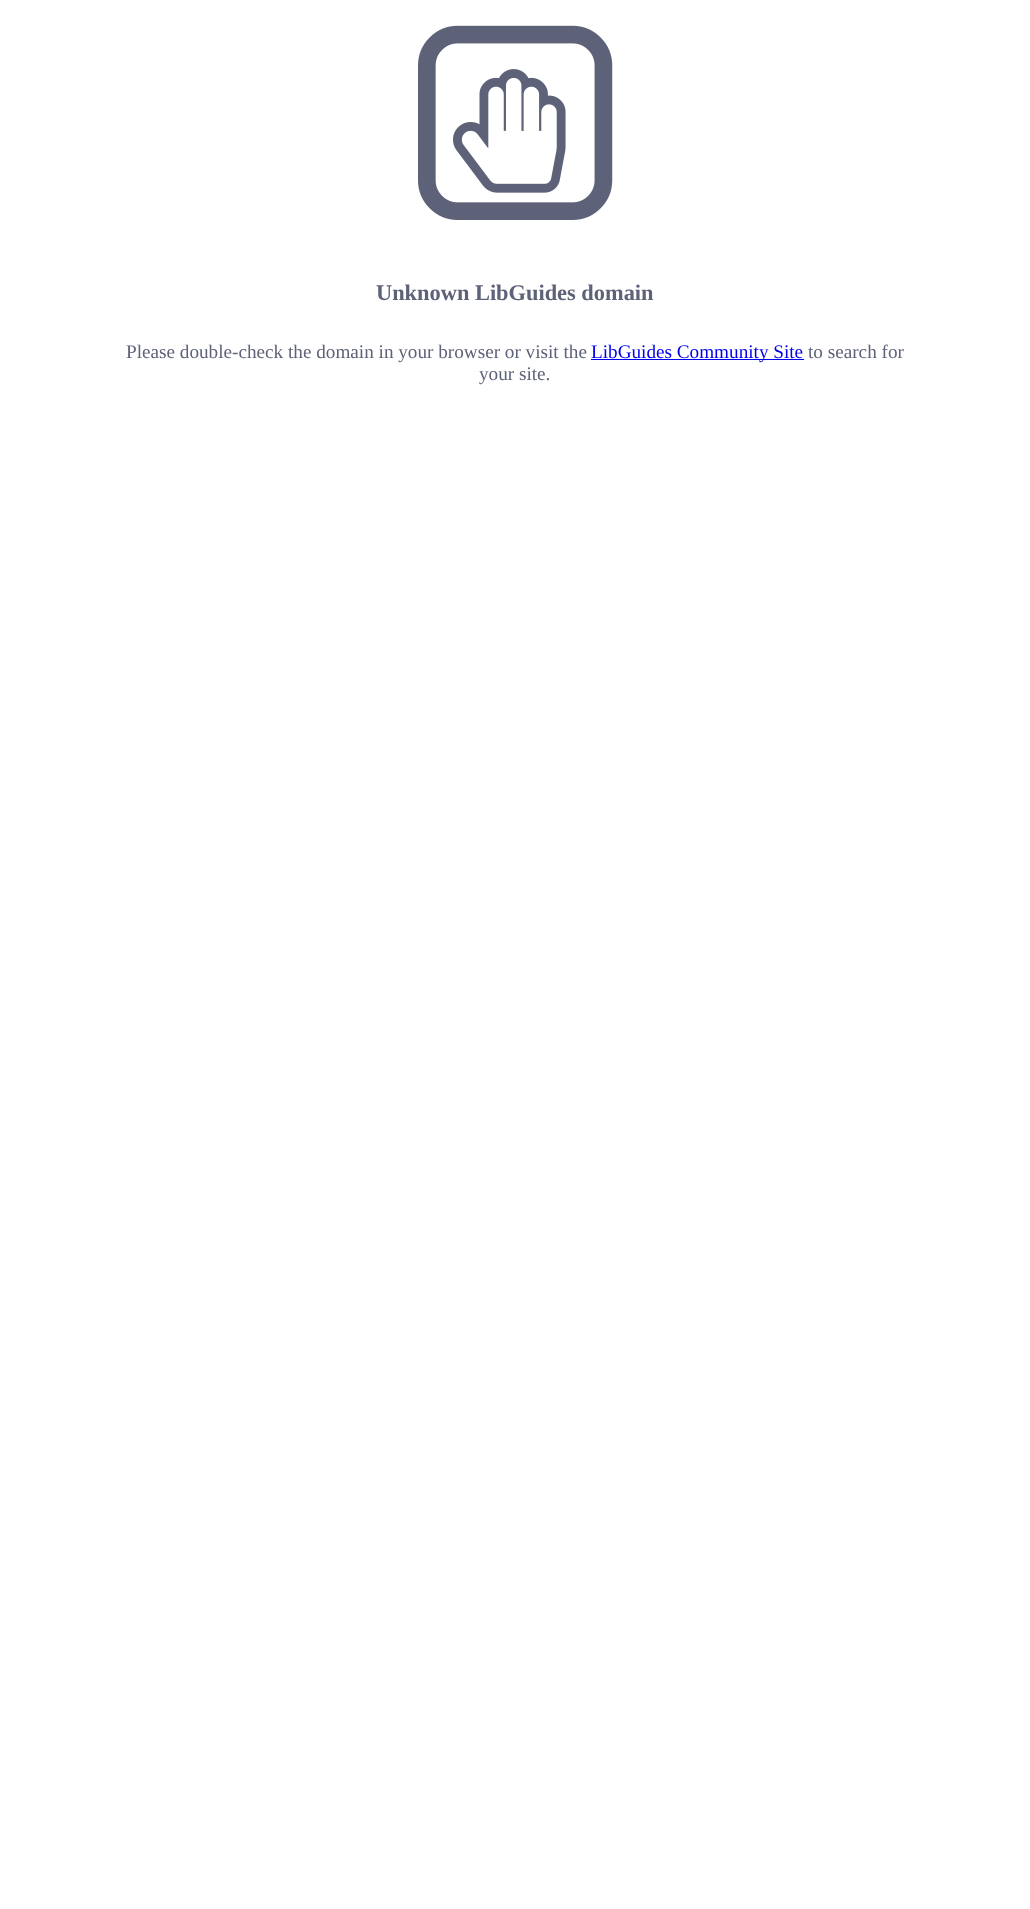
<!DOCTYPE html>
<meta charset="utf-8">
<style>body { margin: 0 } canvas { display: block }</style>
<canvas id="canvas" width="1030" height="1909"></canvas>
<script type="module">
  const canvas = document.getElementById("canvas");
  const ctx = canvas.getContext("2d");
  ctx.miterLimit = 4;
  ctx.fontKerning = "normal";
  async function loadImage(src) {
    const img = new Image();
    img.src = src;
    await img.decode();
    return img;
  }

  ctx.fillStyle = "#ffffff";
  ctx.fillRect(0, 0, 1030, 1909);
  ctx.drawImage(await loadImage("img1.png"), 418, 25, 195, 195);
  ctx.drawImage(await loadImage("img2.png"), 453, 69, 113, 124);
  ctx.font = "bold 22.4px Liberation Serif";
  ctx.fillStyle = "#5e6278";
  ctx.fillText("Unknown LibGuides domain", 376, 300);
  ctx.font = "19.2px Liberation Serif";
  ctx.fillText("Please double-check the domain in your browser or visit the", 126, 358);
  ctx.fillStyle = "#0000ee";
  ctx.fillRect(591, 359, 213, 1);
  ctx.fillText("LibGuides Community Site", 591, 358);
  ctx.fillStyle = "#5e6278";
  ctx.fillText("to search for", 808, 358);
  ctx.fillText("your site.", 479, 380);
</script>
